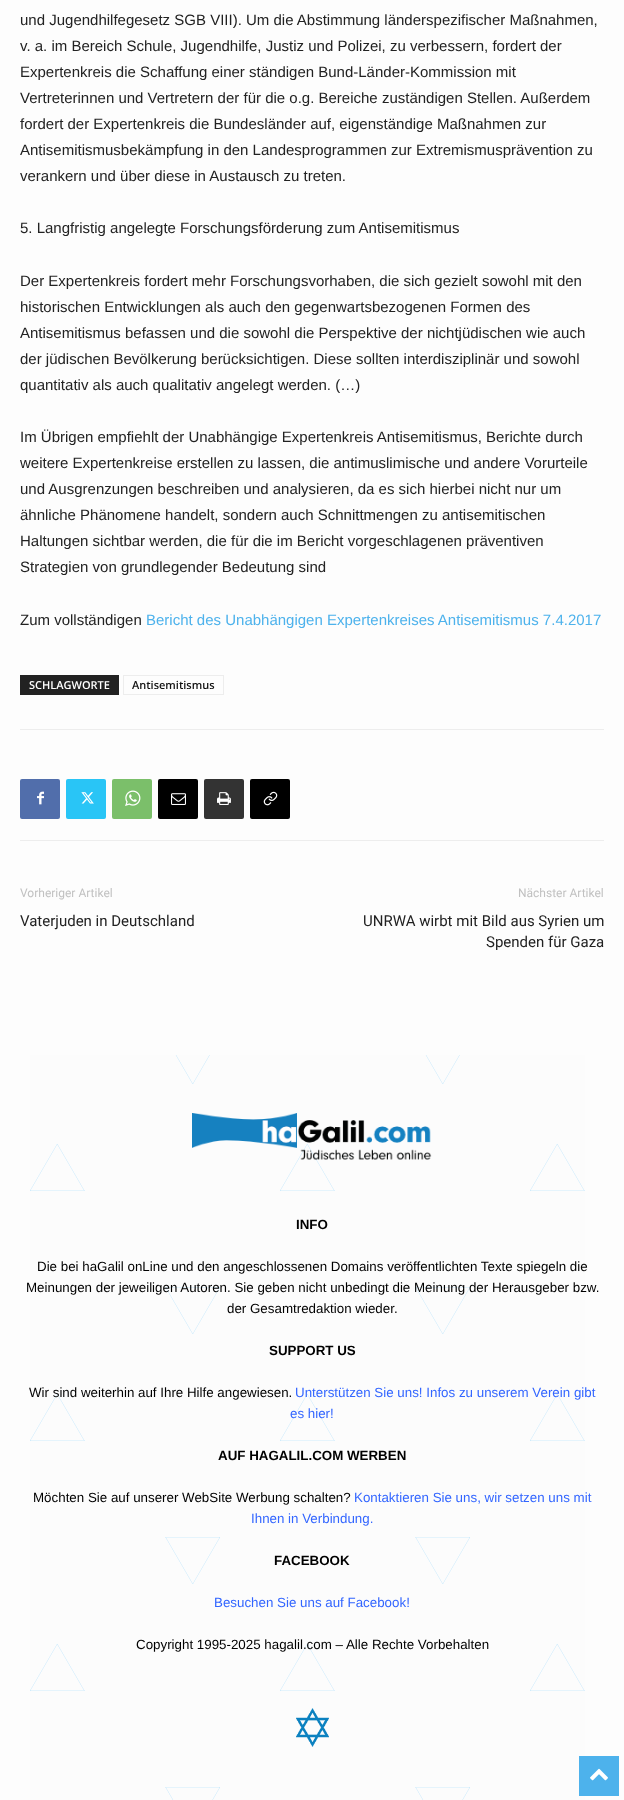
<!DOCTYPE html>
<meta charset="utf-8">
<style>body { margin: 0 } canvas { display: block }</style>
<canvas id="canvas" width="624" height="1800"></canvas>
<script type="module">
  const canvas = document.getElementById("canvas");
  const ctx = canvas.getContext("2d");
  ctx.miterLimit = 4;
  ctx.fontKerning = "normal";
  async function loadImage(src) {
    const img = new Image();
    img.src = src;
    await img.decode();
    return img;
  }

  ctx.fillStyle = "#fdfdfd";
  ctx.fillRect(0, 0, 624, 1800);
  ctx.drawImage(await loadImage("img1.png"), 30, 1055, 555, 745);
  ctx.font = "15px Liberation Sans";
  ctx.fillStyle = "#222222";
  ctx.fillText("und Jugendhilfegesetz SGB VIII). Um die Abstimmung länderspezifischer Maßnahmen,", 20, 25);
  ctx.fillText("v. a. im Bereich Schule, Jugendhilfe, Justiz und Polizei, zu verbessern, fordert der", 20, 51);
  ctx.fillText("Expertenkreis die Schaffung einer ständigen Bund-Länder-Kommission mit", 20, 77);
  ctx.fillText("Vertreterinnen und Vertretern der für die o.g. Bereiche zuständigen Stellen. Außerdem", 20, 103);
  ctx.fillText("fordert der Expertenkreis die Bundesländer auf, eigenständige Maßnahmen zur", 20, 129);
  ctx.fillText("Antisemitismusbekämpfung in den Landesprogrammen zur Extremismusprävention zu", 20, 155);
  ctx.fillText("verankern und über diese in Austausch zu treten.", 20, 181);
  ctx.fillText("5. Langfristig angelegte Forschungsförderung zum Antisemitismus", 20, 233);
  ctx.fillText("Der Expertenkreis fordert mehr Forschungsvorhaben, die sich gezielt sowohl mit den", 20, 286);
  ctx.fillText("historischen Entwicklungen als auch den gegenwartsbezogenen Formen des", 20, 312);
  ctx.fillText("Antisemitismus befassen und die sowohl die Perspektive der nichtjüdischen wie auch", 20, 338);
  ctx.fillText("der jüdischen Bevölkerung berücksichtigen. Diese sollten interdisziplinär und sowohl", 20, 364);
  ctx.fillText("quantitativ als auch qualitativ angelegt werden. (…)", 20, 390);
  ctx.fillText("Im Übrigen empfiehlt der Unabhängige Expertenkreis Antisemitismus, Berichte durch", 20, 442);
  ctx.fillText("weitere Expertenkreise erstellen zu lassen, die antimuslimische und andere Vorurteile", 20, 468);
  ctx.fillText("und Ausgrenzungen beschreiben und analysieren, da es sich hierbei nicht nur um", 20, 494);
  ctx.fillText("ähnliche Phänomene handelt, sondern auch Schnittmengen zu antisemitischen", 20, 520);
  ctx.fillText("Haltungen sichtbar werden, die für die im Bericht vorgeschlagenen präventiven", 20, 546);
  ctx.fillText("Strategien von grundlegender Bedeutung sind", 20, 572);
  ctx.fillText("Zum vollständigen", 20, 625);
  ctx.fillStyle = "#4db2ec";
  ctx.fillText("Bericht des Unabhängigen Expertenkreises Antisemitismus 7.4.2017", 146, 625);
  ctx.fillStyle = "#222222";
  ctx.fillRect(20, 675, 99, 20);
  ctx.font = "600 11px Open Sans";
  ctx.fillStyle = "#ffffff";
  ctx.fillText("SCHLAGWORTE", 29, 689);
  ctx.strokeStyle = "#ededed";
  ctx.strokeRect(123.5, 675.5, 100, 19);
  ctx.fillStyle = "#111111";
  ctx.fillText("Antisemitismus", 132, 689);
  ctx.fillStyle = "#ededed";
  ctx.fillRect(20, 729, 584, 1);
  ctx.fillRect(20, 840, 584, 1);
  ctx.fillStyle = "#516eab";
  ctx.beginPath();
  ctx.roundRect(20, 779, 40, 40, 2);
  ctx.fill();
  ctx.drawImage(await loadImage("img2.png"), 37, 791, 7, 14);
  ctx.fillStyle = "#29c5f6";
  ctx.beginPath();
  ctx.roundRect(66, 779, 40, 40, 2);
  ctx.fill();
  ctx.drawImage(await loadImage("img3.png"), 81, 792, 13, 12);
  ctx.fillStyle = "#7bbf6a";
  ctx.beginPath();
  ctx.roundRect(112, 779, 40, 40, 2);
  ctx.fill();
  ctx.drawImage(await loadImage("img4.png"), 125, 790, 16, 16);
  ctx.fillStyle = "#000000";
  ctx.beginPath();
  ctx.roundRect(158, 779, 40, 40, 2);
  ctx.fill();
  ctx.drawImage(await loadImage("img5.png"), 171, 793, 15, 12);
  ctx.fillStyle = "#333333";
  ctx.beginPath();
  ctx.roundRect(204, 779, 40, 40, 2);
  ctx.fill();
  ctx.drawImage(await loadImage("img6.png"), 217, 792, 14, 13);
  ctx.fillStyle = "#000000";
  ctx.beginPath();
  ctx.roundRect(250, 779, 40, 40, 2);
  ctx.fill();
  ctx.drawImage(await loadImage("img7.png"), 263, 791, 15, 15);
  ctx.font = "12px Roboto";
  ctx.fillStyle = "#c1c1c1";
  ctx.fillText("Vorheriger Artikel", 20, 897);
  ctx.font = "15px Roboto";
  ctx.fillStyle = "#222222";
  ctx.fillText("Vaterjuden in Deutschland", 20, 926);
  ctx.font = "12px Roboto";
  ctx.fillStyle = "#c1c1c1";
  ctx.fillText("Nächster Artikel", 518, 897);
  ctx.font = "15px Roboto";
  ctx.fillStyle = "#222222";
  ctx.fillText("UNRWA wirbt mit Bild aus Syrien um", 363, 926);
  ctx.fillText("Spenden für Gaza", 486, 947);
  ctx.drawImage(await loadImage("img8.png"), 192, 1113, 240, 47);
  ctx.font = "bold 13.35px Liberation Sans";
  ctx.fillStyle = "#000000";
  ctx.fillText("INFO", 296, 1229);
  ctx.font = "13.35px Liberation Sans";
  ctx.fillText("Die bei haGalil onLine und den angeschlossenen Domains veröffentlichten Texte spiegeln die", 37, 1271);
  ctx.fillText("Meinungen der jeweiligen Autoren. Sie geben nicht unbedingt die Meinung der Herausgeber bzw.", 26, 1292);
  ctx.fillText("der Gesamtredaktion wieder.", 227, 1313);
  ctx.font = "bold 13.35px Liberation Sans";
  ctx.fillText("SUPPORT US", 269, 1355);
  ctx.font = "13.35px Liberation Sans";
  ctx.fillText("Wir sind weiterhin auf Ihre Hilfe angewiesen.", 29, 1397);
  ctx.fillStyle = "#3366ff";
  ctx.fillText("Unterstützen Sie uns! Infos zu unserem Verein gibt", 295, 1397);
  ctx.fillText("es hier!", 290, 1418);
  ctx.font = "bold 13.35px Liberation Sans";
  ctx.fillStyle = "#000000";
  ctx.fillText("AUF HAGALIL.COM WERBEN", 218, 1460);
  ctx.font = "13.35px Liberation Sans";
  ctx.fillText("Möchten Sie auf unserer WebSite Werbung schalten?", 33, 1502);
  ctx.fillStyle = "#3366ff";
  ctx.fillText("Kontaktieren Sie uns, wir setzen uns mit", 354, 1502);
  ctx.fillText("Ihnen in Verbindung.", 251, 1523);
  ctx.font = "bold 13.35px Liberation Sans";
  ctx.fillStyle = "#000000";
  ctx.fillText("FACEBOOK", 274, 1565);
  ctx.font = "13.35px Liberation Sans";
  ctx.fillStyle = "#3366ff";
  ctx.fillText("Besuchen Sie uns auf Facebook!", 214, 1607);
  ctx.fillStyle = "#000000";
  ctx.fillText("Copyright 1995-2025 hagalil.com – Alle Rechte Vorbehalten", 136, 1649);
  ctx.drawImage(await loadImage("img9.png"), 296, 1708, 33, 39);
  ctx.fillStyle = "#4db2ec";
  ctx.fillRect(579, 1756, 40, 40);
  ctx.drawImage(await loadImage("img10.png"), 590, 1768, 18, 13);
</script>
